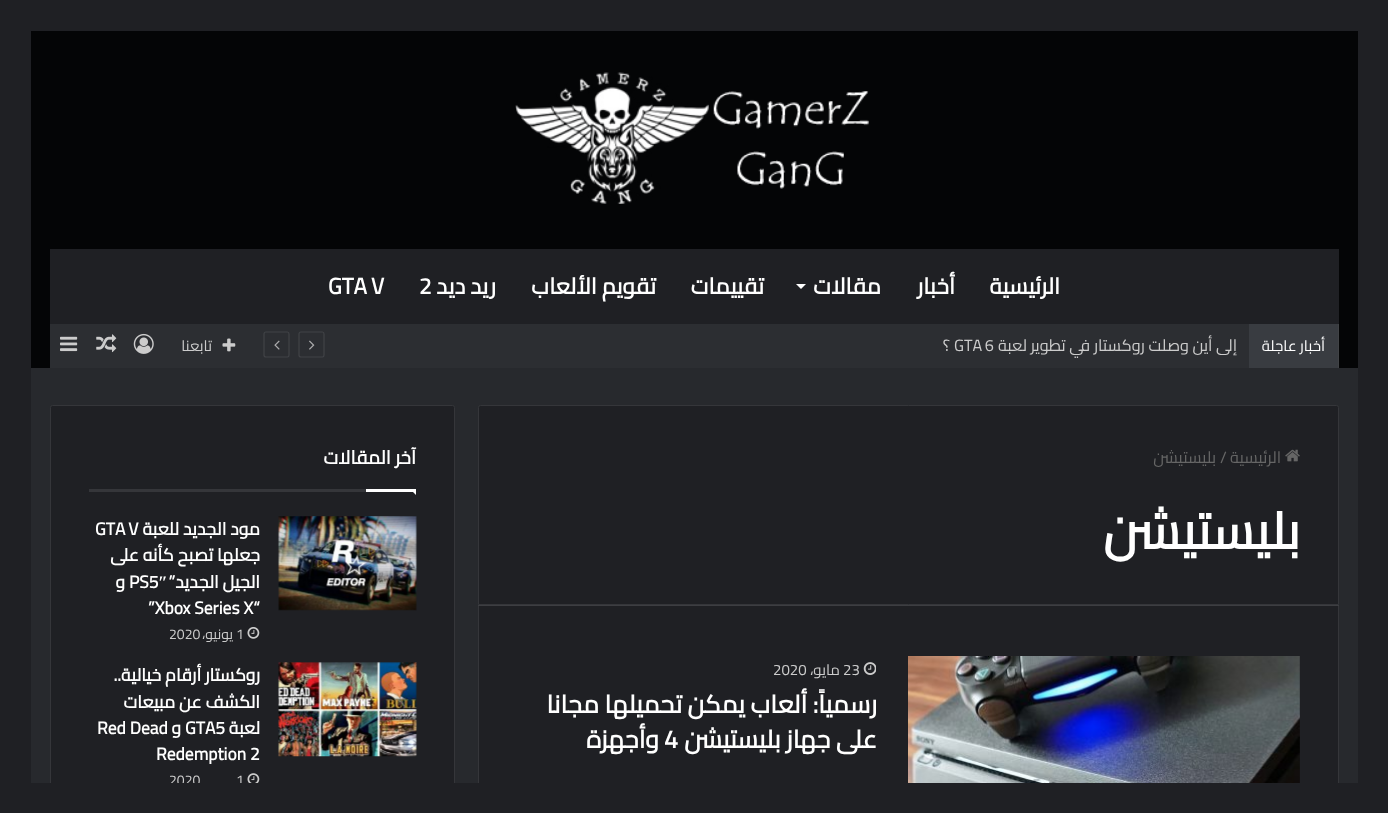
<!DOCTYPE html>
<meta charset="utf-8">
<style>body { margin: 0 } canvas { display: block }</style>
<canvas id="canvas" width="1388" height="813"></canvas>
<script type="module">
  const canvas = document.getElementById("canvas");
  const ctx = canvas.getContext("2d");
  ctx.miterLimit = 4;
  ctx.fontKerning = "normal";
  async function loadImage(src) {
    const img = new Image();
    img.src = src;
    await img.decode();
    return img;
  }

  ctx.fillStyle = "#1f2024";
  ctx.fillRect(0, 0, 1388, 813);
  ctx.fillStyle = "#27292d";
  ctx.fillRect(31, 368, 1327, 415);
  ctx.fillStyle = "#040506";
  ctx.fillRect(31, 31, 1327, 337);
  ctx.drawImage(await loadImage("img1.png"), 515, 72, 354, 132);
  ctx.fillStyle = "#2c2e32";
  ctx.fillRect(50, 324, 1289, 44);
  ctx.fillStyle = "rgba(255, 255, 255, 0.1)";
  ctx.beginPath();
  ctx.moveTo(1339, 322);
  ctx.lineTo(1339, 368);
  ctx.lineTo(1338, 368);
  ctx.lineTo(1338, 324);
  ctx.closePath();
  ctx.fill();
  ctx.fillStyle = "#1f2024";
  ctx.fillRect(50, 249, 1289, 75);
  ctx.direction = "rtl";
  ctx.font = "bold 22.5px Cairo";
  ctx.fillStyle = "#ffffff";
  ctx.fillText("الرئيسية", 1060, 294);
  ctx.fillText("أخبار", 955, 294);
  ctx.fillText("مقالات", 881, 294);
  ctx.beginPath();
  ctx.moveTo(796, 284);
  ctx.lineTo(806, 284);
  ctx.lineTo(801, 289);
  ctx.closePath();
  ctx.fill();
  ctx.fillText("تقييمات", 764, 294);
  ctx.fillText("تقويم الألعاب", 656, 294);
  ctx.fillText("ريد ديد", 496, 294);
  ctx.direction = "ltr";
  ctx.fillText("2", 419, 294);
  ctx.wordSpacing = "-1px";
  ctx.fillText("GTA V", 328, 294);
  ctx.fillStyle = "#393c41";
  ctx.fillRect(1249, 324, 89, 44);
  ctx.wordSpacing = "0px";
  ctx.direction = "rtl";
  ctx.font = "15px Cairo";
  ctx.fillStyle = "#ffffff";
  ctx.fillText("أخبار عاجلة", 1325, 351);
  ctx.font = "16.25px Cairo";
  ctx.fillStyle = "#cccccc";
  ctx.fillText("إلى أين وصلت روكستار في تطوير لعبة", 1237, 351);
  ctx.wordSpacing = "-1px";
  ctx.direction = "ltr";
  ctx.fillText("GTA 6", 954, 351);
  ctx.wordSpacing = "0px";
  ctx.direction = "rtl";
  ctx.fillText("؟", 950, 351);
  ctx.beginPath();
  ctx.moveTo(322.5, 357);
  ctx.lineTo(301, 357);
  ctx.bezierCurveTo(300, 357, 299, 356, 299, 355);
  ctx.lineTo(299, 334);
  ctx.bezierCurveTo(299, 332.5, 300, 332, 301, 332);
  ctx.lineTo(322.5, 332);
  ctx.bezierCurveTo(323.5, 332, 324, 332.5, 324, 334);
  ctx.lineTo(324, 355);
  ctx.bezierCurveTo(324, 356, 323.5, 357, 322.5, 357);
  ctx.closePath();
  ctx.strokeStyle = "#414347";
  ctx.lineWidth = 1.2;
  ctx.stroke();
  ctx.drawImage(await loadImage("img2.png"), 309, 340, 6, 10);
  ctx.beginPath();
  ctx.moveTo(287.5, 357);
  ctx.lineTo(266, 357);
  ctx.bezierCurveTo(265, 357, 264, 356, 264, 355);
  ctx.lineTo(264, 334);
  ctx.bezierCurveTo(264, 332.5, 265, 332, 266, 332);
  ctx.lineTo(287.5, 332);
  ctx.bezierCurveTo(288.5, 332, 289, 332.5, 289, 334);
  ctx.lineTo(289, 355);
  ctx.bezierCurveTo(289, 356, 288.5, 357, 287.5, 357);
  ctx.closePath();
  ctx.stroke();
  ctx.drawImage(await loadImage("img3.png"), 274, 340, 6, 10);
  ctx.drawImage(await loadImage("img4.png"), 222, 338, 14, 14);
  ctx.font = "15px Cairo";
  ctx.fillText("تابعنا", 212, 351);
  ctx.drawImage(await loadImage("img5.png"), 133, 333, 21, 21);
  ctx.drawImage(await loadImage("img6.png"), 96, 334, 21, 19);
  ctx.drawImage(await loadImage("img7.png"), 60, 336, 18, 16);
  ctx.fillStyle = "#1f2024";
  ctx.beginPath();
  ctx.roundRect(478.5, 405.5, 860, 199, [2, 2, 0, 0]);
  ctx.fill();
  ctx.strokeStyle = "#35363a";
  ctx.lineWidth = 1;
  ctx.stroke();
  ctx.drawImage(await loadImage("img8.png"), 1285, 449, 15, 13);
  ctx.font = "16.25px Cairo";
  ctx.fillStyle = "#666666";
  ctx.fillText("الرئيسية", 1281, 463);
  ctx.direction = "ltr";
  ctx.fillText("/", 1220, 463);
  ctx.direction = "rtl";
  ctx.fillText("بليستيشن", 1216, 463);
  ctx.font = "bold 51px Cairo";
  ctx.fillStyle = "#ffffff";
  ctx.fillText("بليستيشن", 1300, 549);
  ctx.fillStyle = "#3d3e42";
  ctx.fillRect(478, 605, 861, 1);
  ctx.fillStyle = "#1f2024";
  ctx.fillRect(479, 606, 859, 177);
  ctx.fillStyle = "#35363a";
  ctx.fillRect(1338, 606, 1, 177);
  ctx.fillRect(478, 606, 1, 177);
  ctx.drawImage(await loadImage("img9.png"), 908, 656, 392, 127);
  ctx.drawImage(await loadImage("img10.png"), 863, 662, 13, 13);
  ctx.direction = "ltr";
  ctx.font = "15px Cairo";
  ctx.fillStyle = "#cccccc";
  ctx.fillText("23", 843, 675);
  ctx.direction = "rtl";
  ctx.fillText("مايو،", 840, 675);
  ctx.direction = "ltr";
  ctx.fillText("2020", 773, 675);
  ctx.direction = "rtl";
  ctx.font = "bold 25px Cairo";
  ctx.fillStyle = "#ffffff";
  ctx.fillText("رسمياً: ألعاب يمكن تحميلها مجانا", 877, 713);
  ctx.fillText("على جهاز بليستيشن", 877, 748);
  ctx.direction = "ltr";
  ctx.fillText("4", 664, 748);
  ctx.direction = "rtl";
  ctx.fillText("وأجهزة", 659, 748);
  ctx.fillStyle = "#1f2024";
  ctx.beginPath();
  ctx.roundRect(50.5, 405.5, 404, 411, 2);
  ctx.fill();
  ctx.stroke();
  ctx.fillStyle = "#35363a";
  ctx.fillRect(89, 489, 277, 3);
  ctx.font = "bold 18.75px Cairo";
  ctx.fillStyle = "#ffffff";
  ctx.fillText("آخر المقالات", 416, 464);
  ctx.beginPath();
  ctx.moveTo(410, 489);
  ctx.lineTo(416, 489);
  ctx.lineTo(416, 495);
  ctx.closePath();
  ctx.fill();
  ctx.fillRect(366, 489, 50, 3);
  ctx.drawImage(await loadImage("img11.png"), 278, 516, 139, 95);
  ctx.font = "bold 17.5px Cairo";
  ctx.fillText("مود الجديد للعبة", 260, 535);
  ctx.wordSpacing = "-1px";
  ctx.direction = "ltr";
  ctx.fillText("GTA V", 95, 535);
  ctx.wordSpacing = "0px";
  ctx.direction = "rtl";
  ctx.fillText("جعلها تصبح كأنه على", 260, 561);
  ctx.fillText("الجيل الجديد”", 260, 588);
  ctx.direction = "ltr";
  ctx.font = "bold 17.5px Liberation Serif";
  ctx.fillText("″", 158, 588);
  ctx.font = "bold 17.5px Cairo";
  ctx.fillText("PS5", 129, 588);
  ctx.direction = "rtl";
  ctx.fillText("و", 125, 588);
  ctx.direction = "ltr";
  ctx.fillText("”Xbox Series X“", 148, 614);
  ctx.drawImage(await loadImage("img12.png"), 247, 627, 13, 12);
  ctx.font = "14px Cairo";
  ctx.fillStyle = "#cccccc";
  ctx.fillText("1", 236, 639);
  ctx.direction = "rtl";
  ctx.fillText("يونيو،", 233, 639);
  ctx.direction = "ltr";
  ctx.fillText("2020", 169, 639);
  ctx.drawImage(await loadImage("img13.png"), 278, 662, 139, 95);
  ctx.direction = "rtl";
  ctx.font = "bold 17.5px Cairo";
  ctx.fillStyle = "#ffffff";
  ctx.fillText("روكستار أرقام خيالية..", 260, 681);
  ctx.fillText("الكشف عن مبيعات", 260, 708);
  ctx.fillText("لعبة", 260, 734);
  ctx.direction = "ltr";
  ctx.fillText("GTA5", 185, 734);
  ctx.direction = "rtl";
  ctx.fillText("و", 181, 734);
  ctx.direction = "ltr";
  ctx.fillText("Red Dead", 97, 734);
  ctx.fillText("Redemption 2", 156, 760);
  ctx.drawImage(await loadImage("img14.png"), 247, 773, 13, 10);
  ctx.font = "14px Cairo";
  ctx.fillStyle = "#cccccc";
  ctx.fillText("1", 236, 785);
  ctx.fillText("2020", 169, 785);
  ctx.fillStyle = "#1f2024";
  ctx.fillRect(50, 783, 405, 30);
</script>
